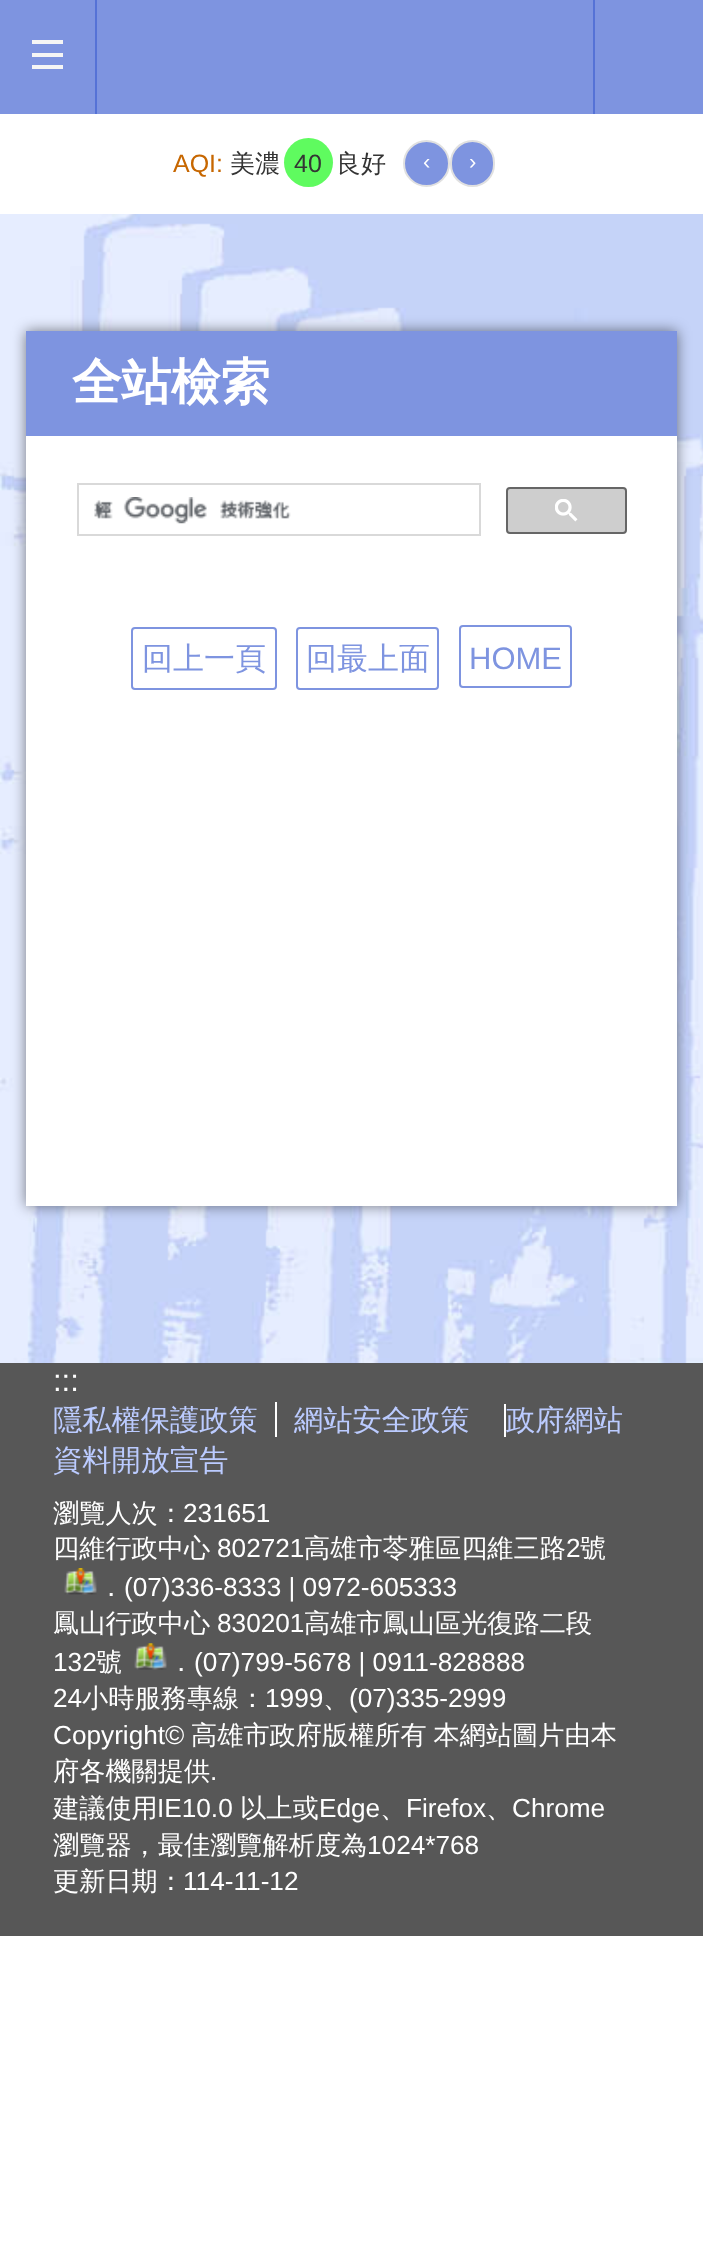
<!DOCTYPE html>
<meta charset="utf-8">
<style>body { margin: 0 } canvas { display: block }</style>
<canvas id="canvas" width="703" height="2241"></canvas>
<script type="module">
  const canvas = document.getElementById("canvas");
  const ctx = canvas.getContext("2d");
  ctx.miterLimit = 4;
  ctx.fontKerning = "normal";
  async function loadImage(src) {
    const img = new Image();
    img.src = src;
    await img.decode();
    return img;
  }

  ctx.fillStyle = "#ffffff";
  ctx.fillRect(0, 0, 703, 2241);
  ctx.drawImage(await loadImage("img1.png"), 0, 214, 703, 1149);
  ctx.fillStyle = "#7e94e0";
  ctx.fillRect(0, 0, 703, 114);
  ctx.fillStyle = "#f5f5f5";
  ctx.fillRect(32, 65, 31, 4);
  ctx.fillRect(32, 53, 31, 4);
  ctx.fillRect(32, 40, 31, 4);
  ctx.fillStyle = "#5572d6";
  ctx.fillRect(593, 0, 2, 114);
  ctx.fillRect(95, 0, 2, 114);
  ctx.font = "25px Liberation Sans";
  ctx.fillStyle = "#c76700";
  ctx.fillText("AQI:", 173, 172);
  ctx.font = "500 25px WenQuanYi Zen Hei";
  ctx.fillStyle = "#343434";
  ctx.fillText("美濃", 230, 172);
  ctx.fillStyle = "#5ffb5f";
  ctx.beginPath();
  ctx.arc(308.5, 162.5, 24.5, 0, Math.PI * 2);
  ctx.fill();
  ctx.font = "25px Liberation Sans";
  ctx.fillStyle = "#343434";
  ctx.fillText("40", 294, 172);
  ctx.font = "500 25px WenQuanYi Zen Hei";
  ctx.fillText("良好", 336, 172);
  ctx.fillStyle = "#7e94e0";
  ctx.beginPath();
  ctx.arc(426.5, 163.5, 22.5, 0, Math.PI * 2);
  ctx.fill();
  ctx.strokeStyle = "#e0e0e0";
  ctx.lineWidth = 2;
  ctx.stroke();
  ctx.font = "22px Liberation Sans";
  ctx.fillStyle = "#ffffff";
  ctx.fillText("‹", 423, 169);
  ctx.fillStyle = "#7e94e0";
  ctx.beginPath();
  ctx.roundRect(451, 141, 43, 45, 21.5);
  ctx.fill();
  ctx.stroke();
  ctx.fillStyle = "#ffffff";
  ctx.fillText("›", 469, 169);
  ctx.fillStyle = "rgba(0, 0, 0, 0.5)";
  ctx.filter = "blur(7px)";
  ctx.beginPath();
  ctx.rect(26, 331, 651, 875);
  ctx.fill();
  ctx.filter = "none";
  ctx.fillStyle = "#ffffff";
  ctx.fillRect(26, 436, 651, 770);
  ctx.fillStyle = "#7e94e0";
  ctx.fillRect(26, 331, 651, 105);
  ctx.font = "bold 49.5px WenQuanYi Zen Hei";
  ctx.fillStyle = "#ffffff";
  ctx.fillText("全站檢索", 72, 399);
  ctx.strokeStyle = "#d9d9d9";
  ctx.strokeRect(78, 484, 402, 51);
  ctx.drawImage(await loadImage("img2.png"), 94, 497, 197, 27);
  ctx.fillStyle = "#cecece";
  ctx.beginPath();
  ctx.roundRect(507, 488, 119, 45, 3);
  ctx.fill();
  ctx.strokeStyle = "#666666";
  ctx.stroke();
  ctx.drawImage(await loadImage("img3.png"), 555, 499, 23, 23);
  ctx.beginPath();
  ctx.roundRect(132, 628, 144, 61, 3);
  ctx.strokeStyle = "#7e94e0";
  ctx.stroke();
  ctx.font = "500 31px WenQuanYi Zen Hei";
  ctx.fillStyle = "#7e94e0";
  ctx.fillText("回上一頁", 142, 669);
  ctx.beginPath();
  ctx.roundRect(297, 628, 141, 61, 3);
  ctx.stroke();
  ctx.fillText("回最上面", 306, 669);
  ctx.beginPath();
  ctx.roundRect(460, 626, 111, 61, 3);
  ctx.stroke();
  ctx.font = "31px Liberation Sans";
  ctx.fillText("HOME", 469, 669);
  ctx.fillStyle = "#575757";
  ctx.fillRect(0, 1363, 703, 573);
  ctx.fillStyle = "#ffffff";
  ctx.fillText(":::", 53, 1391);
  ctx.font = "500 29.25px WenQuanYi Zen Hei";
  ctx.fillStyle = "#bbcbff";
  ctx.fillText("隱私權保護政策", 53, 1430);
  ctx.fillText("網站安全政策", 294, 1430);
  ctx.fillStyle = "#ffffff";
  ctx.fillRect(275, 1402, 2, 35);
  ctx.fillStyle = "#bbcbff";
  ctx.fillText("政府網站", 506, 1430);
  ctx.fillStyle = "#ffffff";
  ctx.fillRect(504, 1404, 2, 33);
  ctx.fillStyle = "#bbcbff";
  ctx.fillText("資料開放宣告", 53, 1470);
  ctx.font = "500 26.2px WenQuanYi Zen Hei";
  ctx.fillStyle = "#ffffff";
  ctx.fillText("瀏覽人次：", 53, 1522);
  ctx.font = "26.2px Liberation Sans";
  ctx.fillText("231651", 183, 1522);
  ctx.font = "500 26.2px WenQuanYi Zen Hei";
  ctx.fillText("四維行政中心", 53, 1557);
  ctx.font = "26.2px Liberation Sans";
  ctx.fillText("802721", 217, 1557);
  ctx.font = "500 26.2px WenQuanYi Zen Hei";
  ctx.fillText("高雄市苓雅區四維三路", 304, 1557);
  ctx.font = "26.2px Liberation Sans";
  ctx.fillText("2", 566, 1557);
  ctx.font = "500 26.2px WenQuanYi Zen Hei";
  ctx.fillText("號", 580, 1557);
  ctx.drawImage(await loadImage("img4.png"), 64, 1568, 33, 27);
  ctx.fillText("．", 98, 1596);
  ctx.font = "26.2px Liberation Sans";
  ctx.fillText("(07)336-8333 | 0972-605333", 124, 1596);
  ctx.font = "500 26.2px WenQuanYi Zen Hei";
  ctx.fillText("鳳山行政中心", 53, 1632);
  ctx.font = "26.2px Liberation Sans";
  ctx.fillText("830201", 217, 1632);
  ctx.font = "500 26.2px WenQuanYi Zen Hei";
  ctx.fillText("高雄市鳳山區光復路二段", 304, 1632);
  ctx.font = "26.2px Liberation Sans";
  ctx.fillText("132", 53, 1671);
  ctx.font = "500 26.2px WenQuanYi Zen Hei";
  ctx.fillText("號", 96, 1671);
  ctx.drawImage(await loadImage("img5.png"), 134, 1643, 33, 27);
  ctx.fillText("．", 168, 1671);
  ctx.font = "26.2px Liberation Sans";
  ctx.fillText("(07)799-5678 | 0911-828888", 194, 1671);
  ctx.fillText("24", 53, 1707);
  ctx.font = "500 26.2px WenQuanYi Zen Hei";
  ctx.fillText("小時服務專線：", 82, 1707);
  ctx.font = "26.2px Liberation Sans";
  ctx.fillText("1999", 265, 1707);
  ctx.font = "500 26.2px WenQuanYi Zen Hei";
  ctx.fillText("、", 323, 1707);
  ctx.font = "26.2px Liberation Sans";
  ctx.fillText("(07)335-2999", 349, 1707);
  ctx.fillText("Copyright©", 53, 1744);
  ctx.wordSpacing = "-1px";
  ctx.font = "500 26.2px WenQuanYi Zen Hei";
  ctx.fillText("高雄市政府版權所有 本網站圖片由本", 191, 1744);
  ctx.wordSpacing = "0px";
  ctx.fillText("府各機關提供", 53, 1780);
  ctx.font = "26.2px Liberation Sans";
  ctx.fillText(".", 210, 1780);
  ctx.font = "500 26.2px WenQuanYi Zen Hei";
  ctx.fillText("建議使用", 53, 1817);
  ctx.font = "26.2px Liberation Sans";
  ctx.fillText("IE10.0", 157, 1817);
  ctx.font = "500 26.2px WenQuanYi Zen Hei";
  ctx.fillText("以上或", 240, 1817);
  ctx.font = "26.2px Liberation Sans";
  ctx.fillText("Edge", 319, 1817);
  ctx.font = "500 26.2px WenQuanYi Zen Hei";
  ctx.fillText("、", 380, 1817);
  ctx.font = "26.2px Liberation Sans";
  ctx.fillText("Firefox", 406, 1817);
  ctx.font = "500 26.2px WenQuanYi Zen Hei";
  ctx.fillText("、", 486, 1817);
  ctx.font = "26.2px Liberation Sans";
  ctx.fillText("Chrome", 512, 1817);
  ctx.font = "500 26.2px WenQuanYi Zen Hei";
  ctx.fillText("瀏覽器，最佳瀏覽解析度為", 53, 1854);
  ctx.font = "26.2px Liberation Sans";
  ctx.fillText("1024*768", 367, 1854);
  ctx.font = "500 26.2px WenQuanYi Zen Hei";
  ctx.fillText("更新日期：", 53, 1890);
  ctx.font = "26.2px Liberation Sans";
  ctx.fillText("114-11-12", 183, 1890);
</script>
